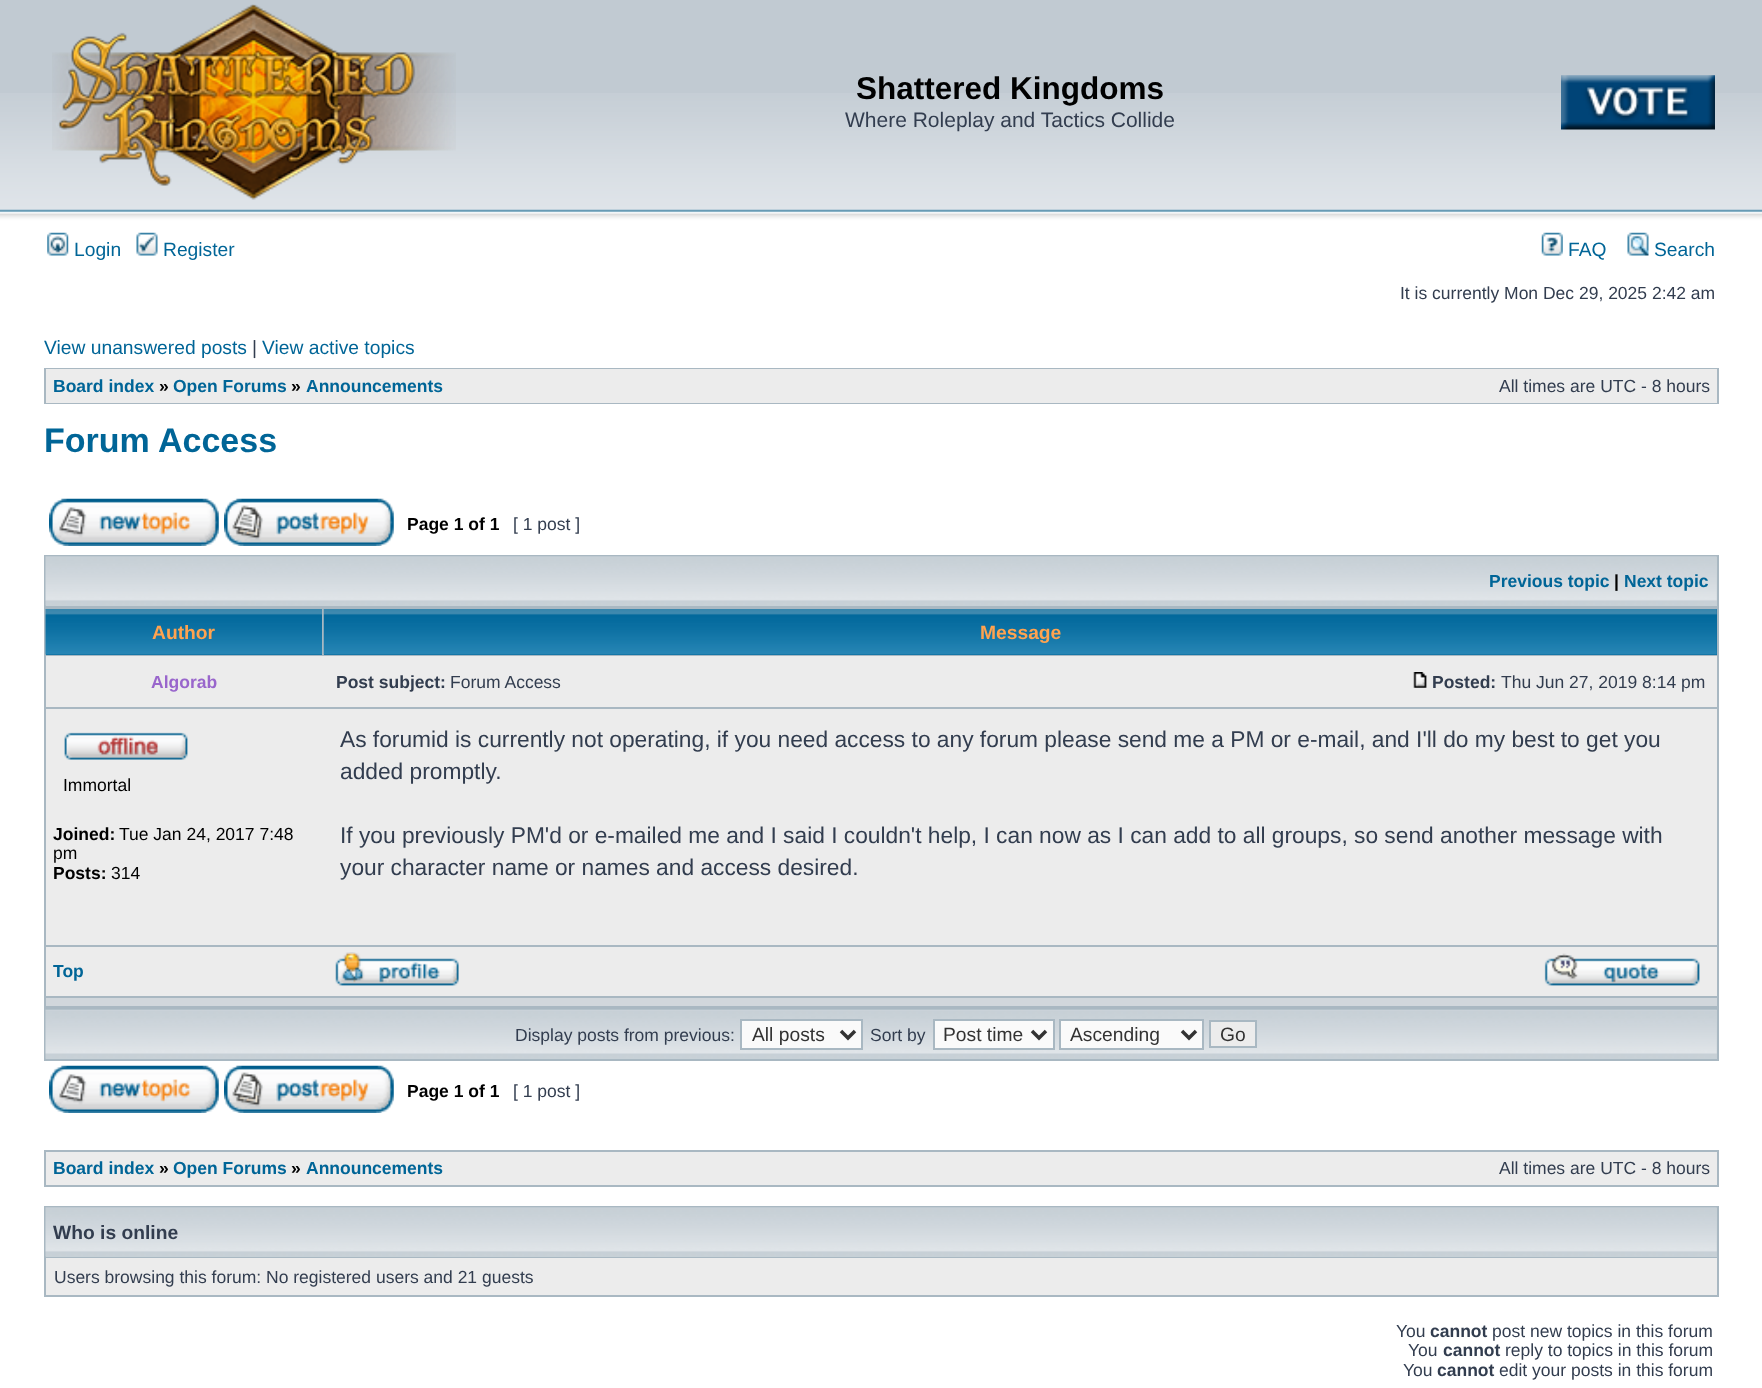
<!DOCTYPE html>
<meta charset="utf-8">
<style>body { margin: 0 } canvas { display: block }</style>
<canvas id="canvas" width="1762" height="1388"></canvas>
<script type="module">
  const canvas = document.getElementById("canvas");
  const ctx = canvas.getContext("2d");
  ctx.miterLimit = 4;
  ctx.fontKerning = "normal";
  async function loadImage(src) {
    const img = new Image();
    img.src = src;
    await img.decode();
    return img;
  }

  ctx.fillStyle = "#ffffff";
  ctx.fillRect(0, 0, 1762, 1388);
  ctx.fillStyle = "#c1cad2";
  ctx.fillRect(0, 0, 1762, 93);
  ctx.drawImage(await loadImage("img1.png"), 0, 93, 1762, 136);
  ctx.drawImage(await loadImage("img2.png"), 52, 4, 404, 196);
  ctx.font = "bold 31.5px Liberation Sans";
  ctx.fillStyle = "#000000";
  ctx.fillText("Shattered Kingdoms", 856, 99);
  ctx.font = "21px Liberation Sans";
  ctx.fillStyle = "#323d4f";
  ctx.fillText("Where Roleplay and Tactics Collide", 845, 127);
  ctx.drawImage(await loadImage("img3.png"), 1561, 75, 154, 55);
  ctx.drawImage(await loadImage("img4.png"), 47, 232, 22, 24);
  ctx.font = "19.25px Liberation Sans";
  ctx.fillStyle = "#006597";
  ctx.fillText("Login", 74, 256);
  ctx.drawImage(await loadImage("img5.png"), 136, 232, 22, 24);
  ctx.fillText("Register", 163, 256);
  ctx.drawImage(await loadImage("img6.png"), 1541, 232, 22, 24);
  ctx.fillText("FAQ", 1568, 256);
  ctx.drawImage(await loadImage("img7.png"), 1627, 232, 22, 24);
  ctx.fillText("Search", 1654, 256);
  ctx.font = "17.5px Liberation Sans";
  ctx.fillStyle = "#323d4f";
  ctx.fillText("It is currently Mon Dec 29, 2025 2:42 am", 1400, 299);
  ctx.font = "19.25px Liberation Sans";
  ctx.fillStyle = "#006597";
  ctx.fillText("View unanswered posts", 44, 354);
  ctx.fillStyle = "#323d4f";
  ctx.fillText("|", 252, 354);
  ctx.fillStyle = "#006597";
  ctx.fillText("View active topics", 262, 354);
  ctx.fillStyle = "#a9b8c2";
  ctx.fillRect(44, 368, 1675, 36);
  ctx.fillStyle = "#ececec";
  ctx.fillRect(46, 369, 1671, 34);
  ctx.font = "bold 17.5px Liberation Sans";
  ctx.fillStyle = "#006597";
  ctx.fillText("Board index", 53, 392);
  ctx.fillStyle = "#000000";
  ctx.fillText("»", 159, 392);
  ctx.fillStyle = "#006597";
  ctx.fillText("Open Forums", 173, 392);
  ctx.fillStyle = "#000000";
  ctx.fillText("»", 291, 392);
  ctx.fillStyle = "#006597";
  ctx.fillText("Announcements", 306, 392);
  ctx.font = "17.5px Liberation Sans";
  ctx.fillStyle = "#323d4f";
  ctx.fillText("All times are UTC - 8 hours", 1499, 392);
  ctx.font = "bold 34px Liberation Sans";
  ctx.fillStyle = "#006597";
  ctx.fillText("Forum Access", 44, 452);
  ctx.drawImage(await loadImage("img8.png"), 49, 498, 170, 48);
  ctx.drawImage(await loadImage("img9.png"), 224, 498, 170, 48);
  ctx.font = "bold 17.5px Liberation Sans";
  ctx.fillStyle = "#000000";
  ctx.fillText("Page 1 of 1", 407, 530);
  ctx.font = "17.5px Liberation Sans";
  ctx.fillStyle = "#323d4f";
  ctx.fillText("[ 1 post ]", 513, 530);
  ctx.fillStyle = "#a9b8c2";
  ctx.fillRect(44, 555, 1675, 506);
  ctx.fillStyle = "#c7d0d7";
  ctx.fillRect(46, 557, 1671, 49);
  ctx.drawImage(await loadImage("img10.png"), 45, 556, 1672, 50);
  ctx.font = "bold 17.5px Liberation Sans";
  ctx.fillStyle = "#006597";
  ctx.fillText("Previous topic", 1489, 587);
  ctx.fillStyle = "#000000";
  ctx.fillText("|", 1614, 587);
  ctx.fillStyle = "#006597";
  ctx.fillText("Next topic", 1624, 587);
  ctx.fillStyle = "#006699";
  ctx.fillRect(46, 654, 276, 1);
  ctx.drawImage(await loadImage("img11.png"), 45, 609, 277, 46);
  ctx.font = "bold 19.25px Liberation Sans";
  ctx.fillStyle = "#ffa34f";
  ctx.fillText("Author", 152, 639);
  ctx.fillStyle = "#006699";
  ctx.fillRect(324, 609, 1393, 46);
  ctx.drawImage(await loadImage("img12.png"), 323, 609, 1394, 46);
  ctx.fillStyle = "#ffa34f";
  ctx.fillText("Message", 980, 639);
  ctx.fillStyle = "#ececec";
  ctx.fillRect(46, 656, 1671, 51);
  ctx.font = "bold 17.5px Liberation Sans";
  ctx.fillStyle = "#9966cc";
  ctx.fillText("Algorab", 151, 688);
  ctx.fillStyle = "#323d4f";
  ctx.fillText("Post subject:", 336, 688);
  ctx.font = "17.5px Liberation Sans";
  ctx.fillText("Forum Access", 450, 688);
  ctx.drawImage(await loadImage("img13.png"), 1413, 672, 14, 16);
  ctx.font = "bold 17.5px Liberation Sans";
  ctx.fillText("Posted:", 1432, 688);
  ctx.font = "17.5px Liberation Sans";
  ctx.fillText("Thu Jun 27, 2019 8:14 pm", 1501, 688);
  ctx.fillStyle = "#ececec";
  ctx.fillRect(46, 709, 1671, 236);
  ctx.drawImage(await loadImage("img14.png"), 64, 732, 124, 28);
  ctx.fillStyle = "#000000";
  ctx.fillText("Immortal", 63, 791);
  ctx.font = "bold 17.5px Liberation Sans";
  ctx.fillText("Joined:", 53, 840);
  ctx.font = "17.5px Liberation Sans";
  ctx.fillText("Tue Jan 24, 2017 7:48", 119, 840);
  ctx.fillText("pm", 53, 859);
  ctx.font = "bold 17.5px Liberation Sans";
  ctx.fillText("Posts:", 53, 879);
  ctx.font = "17.5px Liberation Sans";
  ctx.fillText("314", 111, 879);
  ctx.font = "22.75px Liberation Sans";
  ctx.fillStyle = "#323d4f";
  ctx.fillText("As forumid is currently not operating, if you need access to any forum please send me a PM or e-mail, and I'll do my best to get you", 340, 747);
  ctx.fillText("added promptly.", 340, 779);
  ctx.fillText("If you previously PM'd or e-mailed me and I said I couldn't help, I can now as I can add to all groups, so send another message with", 340, 843);
  ctx.fillText("your character name or names and access desired.", 340, 875);
  ctx.fillStyle = "#ececec";
  ctx.fillRect(46, 947, 1671, 49);
  ctx.font = "bold 17.5px Liberation Sans";
  ctx.fillStyle = "#006597";
  ctx.fillText("Top", 53, 977);
  ctx.drawImage(await loadImage("img15.png"), 335, 952, 124, 34);
  ctx.drawImage(await loadImage("img16.png"), 1544, 953, 156, 33);
  ctx.fillStyle = "#d1d7dc";
  ctx.fillRect(46, 998, 1671, 8);
  ctx.fillStyle = "#c7d0d7";
  ctx.fillRect(46, 1010, 1671, 49);
  ctx.drawImage(await loadImage("img17.png"), 45, 1009, 1672, 50);
  ctx.font = "17.5px Liberation Sans";
  ctx.fillStyle = "#323d4f";
  ctx.fillText("Display posts from previous:", 515, 1041);
  ctx.fillStyle = "#fafafa";
  ctx.beginPath();
  ctx.rect(741, 1020, 121, 29);
  ctx.fill();
  ctx.strokeStyle = "#a9b8c2";
  ctx.lineWidth = 2;
  ctx.stroke();
  ctx.beginPath();
  ctx.moveTo(841, 1031);
  ctx.lineTo(848, 1038);
  ctx.lineTo(855, 1031);
  ctx.strokeStyle = "#333333";
  ctx.lineWidth = 3.5;
  ctx.stroke();
  ctx.font = "19.25px Liberation Sans";
  ctx.fillStyle = "#333333";
  ctx.fillText("All posts", 752, 1041);
  ctx.font = "17.5px Liberation Sans";
  ctx.fillStyle = "#323d4f";
  ctx.fillText("Sort by", 870, 1041);
  ctx.fillStyle = "#fafafa";
  ctx.beginPath();
  ctx.rect(934, 1020, 120, 29);
  ctx.fill();
  ctx.strokeStyle = "#a9b8c2";
  ctx.lineWidth = 2;
  ctx.stroke();
  ctx.beginPath();
  ctx.moveTo(1032, 1031);
  ctx.lineTo(1039, 1038);
  ctx.lineTo(1046, 1031);
  ctx.strokeStyle = "#333333";
  ctx.lineWidth = 3.5;
  ctx.stroke();
  ctx.font = "19.25px Liberation Sans";
  ctx.fillStyle = "#333333";
  ctx.fillText("Post time", 943, 1041);
  ctx.fillStyle = "#fafafa";
  ctx.beginPath();
  ctx.rect(1060, 1020, 143, 29);
  ctx.fill();
  ctx.strokeStyle = "#a9b8c2";
  ctx.lineWidth = 2;
  ctx.stroke();
  ctx.beginPath();
  ctx.moveTo(1182, 1031);
  ctx.lineTo(1189, 1038);
  ctx.lineTo(1196, 1031);
  ctx.strokeStyle = "#333333";
  ctx.lineWidth = 3.5;
  ctx.stroke();
  ctx.fillStyle = "#333333";
  ctx.fillText("Ascending", 1070, 1041);
  ctx.fillStyle = "#ececec";
  ctx.beginPath();
  ctx.rect(1210, 1021, 46, 26);
  ctx.fill();
  ctx.strokeStyle = "#a9b8c2";
  ctx.lineWidth = 2;
  ctx.stroke();
  ctx.fillStyle = "#333333";
  ctx.fillText("Go", 1220, 1041);
  ctx.drawImage(await loadImage("img8.png"), 49, 1065, 170, 48);
  ctx.drawImage(await loadImage("img9.png"), 224, 1065, 170, 48);
  ctx.font = "bold 17.5px Liberation Sans";
  ctx.fillStyle = "#000000";
  ctx.fillText("Page 1 of 1", 407, 1097);
  ctx.font = "17.5px Liberation Sans";
  ctx.fillStyle = "#323d4f";
  ctx.fillText("[ 1 post ]", 513, 1097);
  ctx.fillStyle = "#a9b8c2";
  ctx.fillRect(44, 1150, 1675, 37);
  ctx.fillStyle = "#ececec";
  ctx.fillRect(46, 1152, 1671, 33);
  ctx.font = "bold 17.5px Liberation Sans";
  ctx.fillStyle = "#006597";
  ctx.fillText("Board index", 53, 1174);
  ctx.fillStyle = "#000000";
  ctx.fillText("»", 159, 1174);
  ctx.fillStyle = "#006597";
  ctx.fillText("Open Forums", 173, 1174);
  ctx.fillStyle = "#000000";
  ctx.fillText("»", 291, 1174);
  ctx.fillStyle = "#006597";
  ctx.fillText("Announcements", 306, 1174);
  ctx.font = "17.5px Liberation Sans";
  ctx.fillStyle = "#323d4f";
  ctx.fillText("All times are UTC - 8 hours", 1499, 1174);
  ctx.fillStyle = "#a9b8c2";
  ctx.fillRect(44, 1206, 1675, 91);
  ctx.fillStyle = "#c7d0d7";
  ctx.fillRect(46, 1208, 1671, 49);
  ctx.drawImage(await loadImage("img10.png"), 45, 1207, 1672, 50);
  ctx.font = "bold 19.25px Liberation Sans";
  ctx.fillStyle = "#323d4f";
  ctx.fillText("Who is online", 53, 1239);
  ctx.fillStyle = "#ececec";
  ctx.fillRect(46, 1258, 1671, 37);
  ctx.font = "17.5px Liberation Sans";
  ctx.fillStyle = "#323d4f";
  ctx.fillText("Users browsing this forum: No registered users and 21 guests", 54, 1283);
  ctx.fillText("You", 1396, 1337);
  ctx.font = "bold 17.5px Liberation Sans";
  ctx.fillText("cannot", 1430, 1337);
  ctx.font = "17.5px Liberation Sans";
  ctx.fillText("post new topics in this forum", 1492, 1337);
  ctx.fillText("You", 1408, 1356);
  ctx.font = "bold 17.5px Liberation Sans";
  ctx.fillText("cannot", 1443, 1356);
  ctx.font = "17.5px Liberation Sans";
  ctx.fillText("reply to topics in this forum", 1505, 1356);
  ctx.fillText("You", 1403, 1376);
  ctx.font = "bold 17.5px Liberation Sans";
  ctx.fillText("cannot", 1437, 1376);
  ctx.font = "17.5px Liberation Sans";
  ctx.fillText("edit your posts in this forum", 1499, 1376);
</script>
